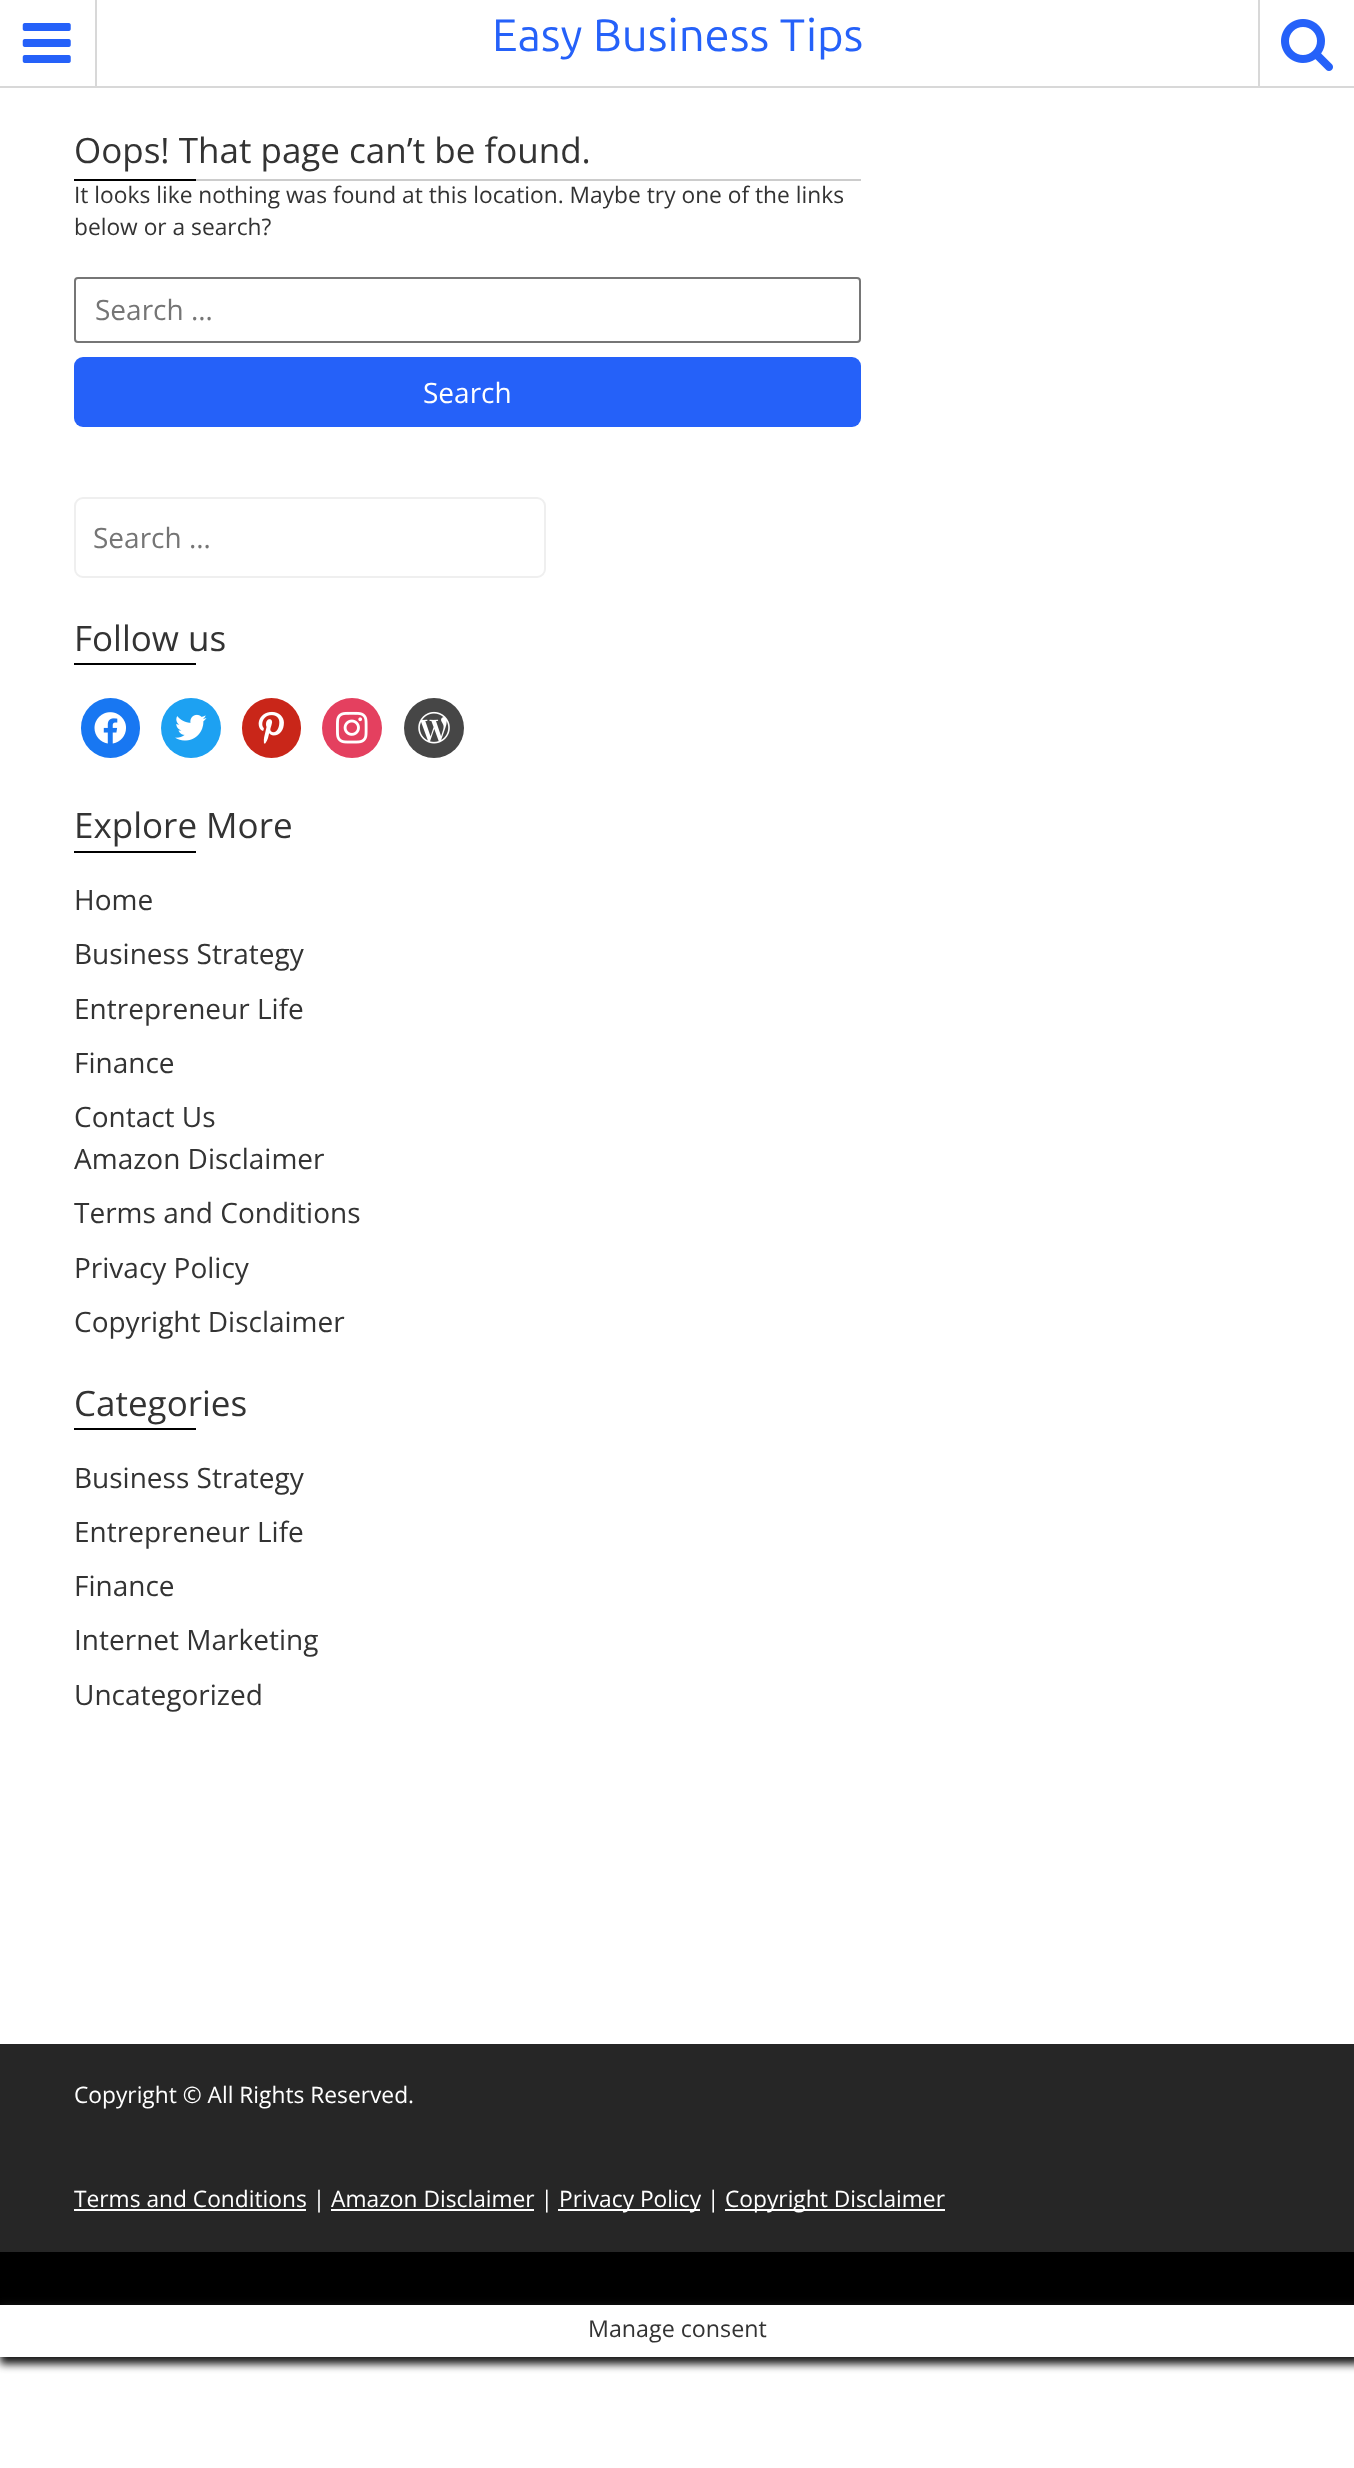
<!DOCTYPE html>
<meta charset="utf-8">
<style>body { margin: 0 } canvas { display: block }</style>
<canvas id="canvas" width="1354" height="2468"></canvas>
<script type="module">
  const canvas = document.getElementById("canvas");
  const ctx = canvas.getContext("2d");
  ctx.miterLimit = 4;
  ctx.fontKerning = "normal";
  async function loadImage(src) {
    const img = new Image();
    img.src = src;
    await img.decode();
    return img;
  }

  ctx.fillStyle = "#ffffff";
  ctx.fillRect(0, 0, 1354, 2468);
  ctx.fillStyle = "#d8d8d8";
  ctx.fillRect(0, 86, 1354, 2);
  ctx.fillRect(95, 0, 2, 88);
  ctx.drawImage(await loadImage("img1.png"), 22, 23, 49, 40);
  ctx.font = "45.5px Ubuntu";
  ctx.fillStyle = "#2561f9";
  ctx.fillText("Easy Business Tips", 492, 51);
  ctx.fillStyle = "#d8d8d8";
  ctx.fillRect(1258, 0, 2, 88);
  ctx.drawImage(await loadImage("img2.png"), 1281, 19, 52, 52);
  ctx.font = "35px Open Sans";
  ctx.fillStyle = "#333333";
  ctx.fillText("Oops! That page can’t be found.", 74, 163);
  ctx.fillStyle = "#000000";
  ctx.fillRect(74, 179, 122, 2);
  ctx.fillStyle = "#cccccc";
  ctx.fillRect(196, 179, 665, 2);
  ctx.font = "22.75px Open Sans";
  ctx.fillStyle = "#333333";
  ctx.fillText("It looks like nothing was found at this location. Maybe try one of the links", 74, 203);
  ctx.fillText("below or a search?", 74, 235);
  ctx.beginPath();
  ctx.roundRect(75, 278, 785, 64, 3);
  ctx.strokeStyle = "#767676";
  ctx.lineWidth = 2;
  ctx.stroke();
  ctx.font = "28px Open Sans";
  ctx.fillStyle = "#757575";
  ctx.fillText("Search …", 95, 320);
  ctx.fillStyle = "#2561f9";
  ctx.beginPath();
  ctx.roundRect(74, 357, 787, 70, 9);
  ctx.fill();
  ctx.fillStyle = "#ffffff";
  ctx.fillText("Search", 423, 403);
  ctx.beginPath();
  ctx.roundRect(75, 498, 470, 79, 8);
  ctx.strokeStyle = "#efefef";
  ctx.stroke();
  ctx.fillStyle = "#757575";
  ctx.fillText("Search …", 93, 548);
  ctx.font = "35px Open Sans";
  ctx.fillStyle = "#333333";
  ctx.fillText("Follow us", 74, 651);
  ctx.fillStyle = "#000000";
  ctx.fillRect(74, 663, 122, 2);
  ctx.fillStyle = "#1877f2";
  ctx.beginPath();
  ctx.roundRect(81, 698, 59, 60, 29.5);
  ctx.fill();
  ctx.drawImage(await loadImage("img3.png"), 94, 712, 32, 32);
  ctx.fillStyle = "#1da1f2";
  ctx.beginPath();
  ctx.arc(191, 728, 30, 0, Math.PI * 2);
  ctx.fill();
  ctx.drawImage(await loadImage("img4.png"), 175, 714, 32, 27);
  ctx.fillStyle = "#c92619";
  ctx.beginPath();
  ctx.roundRect(242, 698, 59, 60, 29.5);
  ctx.fill();
  ctx.drawImage(await loadImage("img5.png"), 258, 711, 26, 33);
  ctx.fillStyle = "#e4405f";
  ctx.beginPath();
  ctx.arc(352, 728, 30, 0, Math.PI * 2);
  ctx.fill();
  ctx.drawImage(await loadImage("img6.png"), 336, 711, 32, 33);
  ctx.fillStyle = "#464646";
  ctx.beginPath();
  ctx.arc(434, 728, 30, 0, Math.PI * 2);
  ctx.fill();
  ctx.drawImage(await loadImage("img7.png"), 418, 711, 32, 33);
  ctx.fillStyle = "#333333";
  ctx.fillText("Explore More", 74, 838);
  ctx.fillStyle = "#000000";
  ctx.fillRect(74, 851, 122, 2);
  ctx.font = "28px Open Sans";
  ctx.fillStyle = "#333333";
  ctx.fillText("Home", 74, 910);
  ctx.fillText("Business Strategy", 74, 964);
  ctx.fillText("Entrepreneur Life", 74, 1019);
  ctx.fillText("Finance", 74, 1073);
  ctx.fillText("Contact Us", 74, 1127);
  ctx.fillText("Amazon Disclaimer", 74, 1169);
  ctx.fillText("Terms and Conditions", 74, 1223);
  ctx.fillText("Privacy Policy", 74, 1278);
  ctx.fillText("Copyright Disclaimer", 74, 1332);
  ctx.font = "35px Open Sans";
  ctx.fillText("Categories", 74, 1416);
  ctx.fillStyle = "#000000";
  ctx.fillRect(74, 1428, 122, 2);
  ctx.font = "28px Open Sans";
  ctx.fillStyle = "#333333";
  ctx.fillText("Business Strategy", 74, 1488);
  ctx.fillText("Entrepreneur Life", 74, 1542);
  ctx.fillText("Finance", 74, 1596);
  ctx.fillText("Internet Marketing", 74, 1650);
  ctx.fillText("Uncategorized", 74, 1705);
  ctx.fillStyle = "#262626";
  ctx.fillRect(0, 2044, 1354, 208);
  ctx.font = "22.75px Open Sans";
  ctx.fillStyle = "#ffffff";
  ctx.fillText("Copyright © All Rights Reserved.", 74, 2103);
  ctx.fillRect(74, 2209, 232, 2);
  ctx.fillText("Terms and Conditions | Amazon Disclaimer |", 74, 2207);
  ctx.fillRect(558, 2209, 142, 2);
  ctx.fillText("Privacy Policy |", 559, 2207);
  ctx.fillRect(725, 2209, 220, 2);
  ctx.fillText("Copyright Disclaimer", 725, 2207);
  ctx.fillRect(331, 2209, 203, 2);
  ctx.fillStyle = "#000000";
  ctx.fillRect(0, 2252, 1354, 53);
  ctx.save();
  ctx.beginPath();
  ctx.moveTo(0, 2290);
  ctx.lineTo(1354, 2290);
  ctx.lineTo(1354, 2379);
  ctx.lineTo(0, 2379);
  ctx.closePath();
  ctx.moveTo(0, 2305);
  ctx.lineTo(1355, 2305);
  ctx.lineTo(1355, 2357);
  ctx.lineTo(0, 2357);
  ctx.closePath();
  ctx.clip("evenodd");
  ctx.fillStyle = "#161616";
  ctx.filter = "blur(4.5px)";
  ctx.beginPath();
  ctx.rect(0, 2305, 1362, 59);
  ctx.fill();
  ctx.filter = "none";
  ctx.restore();
  ctx.font = "23.25px Open Sans";
  ctx.fillStyle = "#333333";
  ctx.fillText("Manage consent", 588, 2337);
</script>
